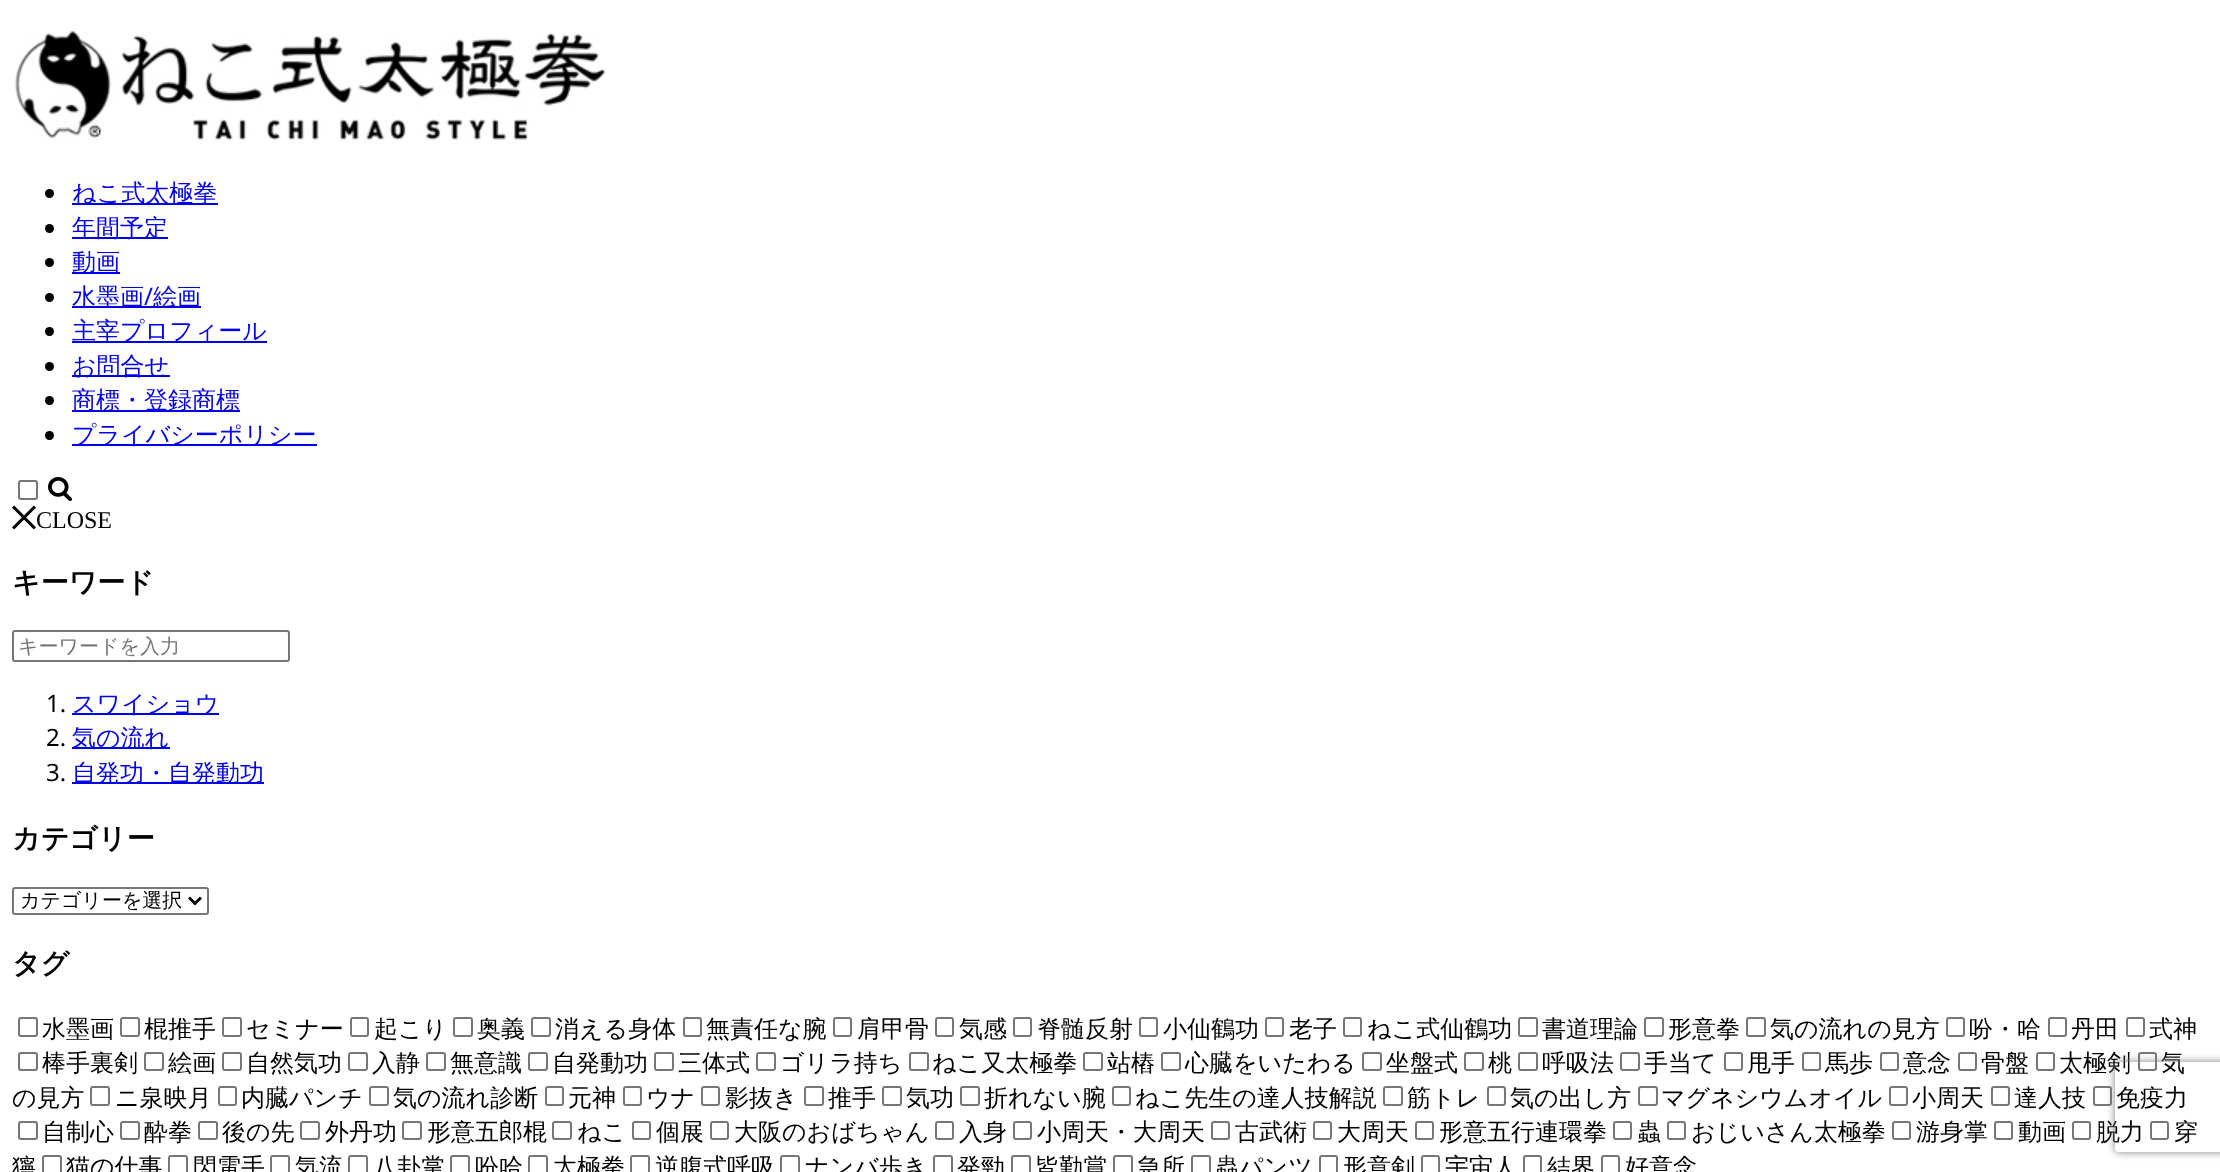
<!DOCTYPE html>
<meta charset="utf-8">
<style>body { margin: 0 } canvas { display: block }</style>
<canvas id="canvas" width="2220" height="1172"></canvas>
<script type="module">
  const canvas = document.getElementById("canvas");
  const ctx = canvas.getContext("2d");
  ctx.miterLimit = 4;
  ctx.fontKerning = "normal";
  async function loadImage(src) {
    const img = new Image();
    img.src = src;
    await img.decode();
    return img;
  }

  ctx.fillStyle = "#ffffff";
  ctx.fillRect(0, 0, 2220, 1172);
  ctx.drawImage(await loadImage("img1.png"), 14, 30, 592, 110);
  ctx.fillStyle = "#000000";
  ctx.beginPath();
  ctx.arc(49.5, 193.5, 4.5, 0, Math.PI * 2);
  ctx.fill();
  ctx.fillStyle = "#0000ee";
  ctx.fillRect(72, 203, 146, 2);
  ctx.font = "500 24px WenQuanYi Zen Hei";
  ctx.fillText("ねこ式太極拳", 72, 201);
  ctx.fillStyle = "#000000";
  ctx.beginPath();
  ctx.arc(49.5, 228.5, 4.5, 0, Math.PI * 2);
  ctx.fill();
  ctx.fillStyle = "#0000ee";
  ctx.fillRect(72, 237, 96, 2);
  ctx.fillText("年間予定", 72, 236);
  ctx.fillStyle = "#000000";
  ctx.beginPath();
  ctx.arc(49.5, 262.5, 4.5, 0, Math.PI * 2);
  ctx.fill();
  ctx.fillStyle = "#0000ee";
  ctx.fillRect(72, 272, 48, 2);
  ctx.fillText("動画", 72, 270);
  ctx.fillStyle = "#000000";
  ctx.beginPath();
  ctx.arc(49.5, 297.5, 4.5, 0, Math.PI * 2);
  ctx.fill();
  ctx.fillStyle = "#0000ee";
  ctx.fillRect(72, 306, 129, 2);
  ctx.fillText("水墨画", 72, 305);
  ctx.font = "24px Noto Sans";
  ctx.fillText("/", 144, 305);
  ctx.font = "500 24px WenQuanYi Zen Hei";
  ctx.fillText("絵画", 153, 305);
  ctx.fillStyle = "#000000";
  ctx.beginPath();
  ctx.arc(49.5, 331.5, 4.5, 0, Math.PI * 2);
  ctx.fill();
  ctx.fillStyle = "#0000ee";
  ctx.fillRect(72, 341, 195, 2);
  ctx.fillText("主宰プロフィール", 72, 339);
  ctx.fillStyle = "#000000";
  ctx.beginPath();
  ctx.arc(49.5, 366.5, 4.5, 0, Math.PI * 2);
  ctx.fill();
  ctx.fillStyle = "#0000ee";
  ctx.fillRect(72, 375, 98, 2);
  ctx.fillText("お問合せ", 72, 374);
  ctx.fillStyle = "#000000";
  ctx.beginPath();
  ctx.arc(49.5, 400.5, 4.5, 0, Math.PI * 2);
  ctx.fill();
  ctx.fillStyle = "#0000ee";
  ctx.fillRect(72, 410, 168, 2);
  ctx.fillText("商標・登録商標", 72, 408);
  ctx.fillStyle = "#000000";
  ctx.beginPath();
  ctx.arc(49.5, 435.5, 4.5, 0, Math.PI * 2);
  ctx.fill();
  ctx.fillStyle = "#0000ee";
  ctx.fillRect(72, 444, 245, 2);
  ctx.fillText("プライバシーポリシー", 72, 443);
  ctx.beginPath();
  ctx.roundRect(19, 481, 18, 18, 2);
  ctx.strokeStyle = "#767676";
  ctx.lineWidth = 2;
  ctx.stroke();
  ctx.drawImage(await loadImage("img2.png"), 48, 477, 24, 24);
  ctx.drawImage(await loadImage("img3.png"), 12, 505, 24, 25);
  ctx.font = "24px Liberation Serif";
  ctx.fillStyle = "#000000";
  ctx.fillText("CLOSE", 36, 528);
  ctx.font = "bold 28px WenQuanYi Zen Hei";
  ctx.fillText("キーワード", 12, 592);
  ctx.beginPath();
  ctx.roundRect(13, 631, 276, 30, 2);
  ctx.stroke();
  ctx.font = "500 20px WenQuanYi Zen Hei";
  ctx.fillStyle = "#757575";
  ctx.fillText("キーワードを入力", 18, 653);
  ctx.font = "24px Noto Sans";
  ctx.fillStyle = "#000000";
  ctx.fillText("1.", 46, 712);
  ctx.fillStyle = "#0000ee";
  ctx.fillRect(72, 713, 147, 2);
  ctx.font = "500 24px WenQuanYi Zen Hei";
  ctx.fillText("スワイショウ", 72, 712);
  ctx.font = "24px Noto Sans";
  ctx.fillStyle = "#000000";
  ctx.fillText("2.", 46, 746);
  ctx.fillStyle = "#0000ee";
  ctx.fillRect(72, 747, 98, 2);
  ctx.font = "500 24px WenQuanYi Zen Hei";
  ctx.fillText("気の流れ", 72, 746);
  ctx.font = "24px Noto Sans";
  ctx.fillStyle = "#000000";
  ctx.fillText("3.", 46, 781);
  ctx.fillStyle = "#0000ee";
  ctx.fillRect(72, 782, 192, 2);
  ctx.font = "500 24px WenQuanYi Zen Hei";
  ctx.fillText("自発功・自発動功", 72, 781);
  ctx.font = "bold 28px WenQuanYi Zen Hei";
  ctx.fillStyle = "#000000";
  ctx.fillText("カテゴリー", 12, 848);
  ctx.beginPath();
  ctx.roundRect(13, 888, 195, 26, 2);
  ctx.stroke();
  ctx.beginPath();
  ctx.moveTo(189, 897.5);
  ctx.lineTo(195, 903.5);
  ctx.lineTo(201, 897.5);
  ctx.strokeStyle = "#000000";
  ctx.lineWidth = 3;
  ctx.stroke();
  ctx.font = "500 20px WenQuanYi Zen Hei";
  ctx.fillText("カテゴリーを選択", 20, 907);
  ctx.font = "bold 28px WenQuanYi Zen Hei";
  ctx.fillText("タグ", 12, 973);
  ctx.beginPath();
  ctx.roundRect(19, 1018, 18, 18, 2);
  ctx.strokeStyle = "#767676";
  ctx.lineWidth = 2;
  ctx.stroke();
  ctx.font = "500 24px WenQuanYi Zen Hei";
  ctx.fillText("水墨画", 42, 1037);
  ctx.beginPath();
  ctx.roundRect(121, 1018, 18, 18, 2);
  ctx.stroke();
  ctx.fillText("棍推手", 144, 1037);
  ctx.beginPath();
  ctx.roundRect(223, 1018, 18, 18, 2);
  ctx.stroke();
  ctx.fillText("セミナー", 246, 1037);
  ctx.beginPath();
  ctx.roundRect(351, 1018, 17, 18, 2);
  ctx.stroke();
  ctx.fillText("起こり", 374, 1037);
  ctx.beginPath();
  ctx.roundRect(454, 1018, 18, 18, 2);
  ctx.stroke();
  ctx.fillText("奥義", 477, 1037);
  ctx.beginPath();
  ctx.roundRect(532, 1018, 18, 18, 2);
  ctx.stroke();
  ctx.fillText("消える身体", 555, 1037);
  ctx.beginPath();
  ctx.roundRect(684, 1018, 17, 18, 2);
  ctx.stroke();
  ctx.fillText("無責任な腕", 706, 1037);
  ctx.beginPath();
  ctx.roundRect(834, 1018, 17, 18, 2);
  ctx.stroke();
  ctx.fillText("肩甲骨", 857, 1037);
  ctx.beginPath();
  ctx.roundRect(936, 1018, 17, 18, 2);
  ctx.stroke();
  ctx.fillText("気感", 959, 1037);
  ctx.beginPath();
  ctx.roundRect(1014, 1018, 17, 18, 2);
  ctx.stroke();
  ctx.fillText("脊髄反射", 1037, 1037);
  ctx.beginPath();
  ctx.roundRect(1140, 1018, 17, 18, 2);
  ctx.stroke();
  ctx.fillText("小仙鶴功", 1163, 1037);
  ctx.beginPath();
  ctx.roundRect(1266, 1018, 17, 18, 2);
  ctx.stroke();
  ctx.fillText("老子", 1289, 1037);
  ctx.beginPath();
  ctx.roundRect(1344, 1018, 17, 18, 2);
  ctx.stroke();
  ctx.fillText("ねこ式仙鶴功", 1367, 1037);
  ctx.beginPath();
  ctx.roundRect(1519, 1018, 18, 18, 2);
  ctx.stroke();
  ctx.fillText("書道理論", 1542, 1037);
  ctx.beginPath();
  ctx.roundRect(1645, 1018, 18, 18, 2);
  ctx.stroke();
  ctx.fillText("形意拳", 1668, 1037);
  ctx.beginPath();
  ctx.roundRect(1747, 1018, 18, 18, 2);
  ctx.stroke();
  ctx.fillText("気の流れの見方", 1770, 1037);
  ctx.beginPath();
  ctx.roundRect(1947, 1018, 17, 18, 2);
  ctx.stroke();
  ctx.fillText("吩・哈", 1969, 1037);
  ctx.beginPath();
  ctx.roundRect(2049, 1018, 17, 18, 2);
  ctx.stroke();
  ctx.fillText("丹田", 2071, 1037);
  ctx.beginPath();
  ctx.roundRect(2127, 1018, 17, 18, 2);
  ctx.stroke();
  ctx.fillText("式神", 2149, 1037);
  ctx.beginPath();
  ctx.roundRect(19, 1053, 18, 17, 2);
  ctx.stroke();
  ctx.fillText("棒手裏剣", 42, 1071);
  ctx.beginPath();
  ctx.roundRect(145, 1053, 18, 17, 2);
  ctx.stroke();
  ctx.fillText("絵画", 168, 1071);
  ctx.beginPath();
  ctx.roundRect(223, 1053, 18, 17, 2);
  ctx.stroke();
  ctx.fillText("自然気功", 246, 1071);
  ctx.beginPath();
  ctx.roundRect(349, 1053, 18, 17, 2);
  ctx.stroke();
  ctx.fillText("入静", 372, 1071);
  ctx.beginPath();
  ctx.roundRect(427, 1053, 18, 17, 2);
  ctx.stroke();
  ctx.fillText("無意識", 450, 1071);
  ctx.beginPath();
  ctx.roundRect(529, 1053, 18, 17, 2);
  ctx.stroke();
  ctx.fillText("自発動功", 552, 1071);
  ctx.beginPath();
  ctx.roundRect(655, 1053, 18, 17, 2);
  ctx.stroke();
  ctx.fillText("三体式", 678, 1071);
  ctx.beginPath();
  ctx.roundRect(757, 1053, 18, 17, 2);
  ctx.stroke();
  ctx.fillText("ゴリラ持ち", 780, 1071);
  ctx.beginPath();
  ctx.roundRect(910, 1053, 18, 17, 2);
  ctx.stroke();
  ctx.fillText("ねこ又太極拳", 932, 1071);
  ctx.beginPath();
  ctx.roundRect(1084, 1053, 18, 17, 2);
  ctx.stroke();
  ctx.fillText("站樁", 1107, 1071);
  ctx.beginPath();
  ctx.roundRect(1162, 1053, 18, 17, 2);
  ctx.stroke();
  ctx.fillText("心臓をいたわる", 1185, 1071);
  ctx.beginPath();
  ctx.roundRect(1363, 1053, 18, 17, 2);
  ctx.stroke();
  ctx.fillText("坐盤式", 1386, 1071);
  ctx.beginPath();
  ctx.roundRect(1465, 1053, 18, 17, 2);
  ctx.stroke();
  ctx.fillText("桃", 1488, 1071);
  ctx.beginPath();
  ctx.roundRect(1519, 1053, 18, 17, 2);
  ctx.stroke();
  ctx.fillText("呼吸法", 1542, 1071);
  ctx.beginPath();
  ctx.roundRect(1621, 1053, 18, 17, 2);
  ctx.stroke();
  ctx.fillText("手当て", 1644, 1071);
  ctx.beginPath();
  ctx.roundRect(1725, 1053, 17, 17, 2);
  ctx.stroke();
  ctx.fillText("甩手", 1747, 1071);
  ctx.beginPath();
  ctx.roundRect(1803, 1053, 17, 17, 2);
  ctx.stroke();
  ctx.fillText("馬歩", 1825, 1071);
  ctx.beginPath();
  ctx.roundRect(1881, 1053, 17, 17, 2);
  ctx.stroke();
  ctx.fillText("意念", 1903, 1071);
  ctx.beginPath();
  ctx.roundRect(1959, 1053, 17, 17, 2);
  ctx.stroke();
  ctx.fillText("骨盤", 1981, 1071);
  ctx.beginPath();
  ctx.roundRect(2037, 1053, 17, 17, 2);
  ctx.stroke();
  ctx.fillText("太極剣", 2059, 1071);
  ctx.beginPath();
  ctx.roundRect(2139, 1053, 17, 17, 2);
  ctx.stroke();
  ctx.fillText("気", 2161, 1071);
  ctx.fillText("の見方", 12, 1106);
  ctx.beginPath();
  ctx.roundRect(91, 1087, 18, 18, 2);
  ctx.stroke();
  ctx.fillText("ニ泉映月", 115, 1106);
  ctx.beginPath();
  ctx.roundRect(219, 1087, 17, 18, 2);
  ctx.stroke();
  ctx.fillText("内臓パンチ", 241, 1106);
  ctx.beginPath();
  ctx.roundRect(370, 1087, 18, 18, 2);
  ctx.stroke();
  ctx.fillText("気の流れ診断", 393, 1106);
  ctx.beginPath();
  ctx.roundRect(546, 1087, 17, 18, 2);
  ctx.stroke();
  ctx.fillText("元神", 568, 1106);
  ctx.beginPath();
  ctx.roundRect(624, 1087, 17, 18, 2);
  ctx.stroke();
  ctx.fillText("ウナ", 646, 1106);
  ctx.beginPath();
  ctx.roundRect(702, 1087, 17, 18, 2);
  ctx.stroke();
  ctx.fillText("影抜き", 725, 1106);
  ctx.beginPath();
  ctx.roundRect(805, 1087, 18, 18, 2);
  ctx.stroke();
  ctx.fillText("推手", 828, 1106);
  ctx.beginPath();
  ctx.roundRect(883, 1087, 18, 18, 2);
  ctx.stroke();
  ctx.fillText("気功", 906, 1106);
  ctx.beginPath();
  ctx.roundRect(961, 1087, 18, 18, 2);
  ctx.stroke();
  ctx.fillText("折れない腕", 984, 1106);
  ctx.beginPath();
  ctx.roundRect(1113, 1087, 17, 18, 2);
  ctx.stroke();
  ctx.fillText("ねこ先生の達人技解説", 1135, 1106);
  ctx.beginPath();
  ctx.roundRect(1384, 1087, 18, 18, 2);
  ctx.stroke();
  ctx.fillText("筋トレ", 1407, 1106);
  ctx.beginPath();
  ctx.roundRect(1488, 1087, 17, 18, 2);
  ctx.stroke();
  ctx.fillText("気の出し方", 1510, 1106);
  ctx.beginPath();
  ctx.roundRect(1639, 1087, 18, 18, 2);
  ctx.stroke();
  ctx.fillText("マグネシウムオイル", 1661, 1106);
  ctx.beginPath();
  ctx.roundRect(1890, 1087, 17, 18, 2);
  ctx.stroke();
  ctx.fillText("小周天", 1912, 1106);
  ctx.beginPath();
  ctx.roundRect(1992, 1087, 17, 18, 2);
  ctx.stroke();
  ctx.fillText("達人技", 2014, 1106);
  ctx.beginPath();
  ctx.roundRect(2094, 1087, 17, 18, 2);
  ctx.stroke();
  ctx.fillText("免疫力", 2116, 1106);
  ctx.beginPath();
  ctx.roundRect(2151, 1122, 17, 17, 2);
  ctx.stroke();
  ctx.fillText("穿", 2174, 1140);
  ctx.fillText("獰", 12, 1175);
  ctx.beginPath();
  ctx.roundRect(19, 1122, 18, 17, 2);
  ctx.stroke();
  ctx.fillText("自制心", 42, 1140);
  ctx.beginPath();
  ctx.roundRect(121, 1122, 18, 17, 2);
  ctx.stroke();
  ctx.fillText("酔拳", 144, 1140);
  ctx.beginPath();
  ctx.roundRect(199, 1122, 18, 17, 2);
  ctx.stroke();
  ctx.fillText("後の先", 222, 1140);
  ctx.beginPath();
  ctx.roundRect(301, 1122, 18, 17, 2);
  ctx.stroke();
  ctx.fillText("外丹功", 325, 1140);
  ctx.beginPath();
  ctx.roundRect(403, 1122, 18, 17, 2);
  ctx.stroke();
  ctx.fillText("形意五郎棍", 427, 1140);
  ctx.beginPath();
  ctx.roundRect(553, 1122, 18, 17, 2);
  ctx.stroke();
  ctx.fillText("ねこ", 577, 1140);
  ctx.beginPath();
  ctx.roundRect(633, 1122, 17, 17, 2);
  ctx.stroke();
  ctx.fillText("個展", 656, 1140);
  ctx.beginPath();
  ctx.roundRect(711, 1122, 17, 17, 2);
  ctx.stroke();
  ctx.fillText("大阪のおばちゃん", 734, 1140);
  ctx.beginPath();
  ctx.roundRect(936, 1122, 17, 17, 2);
  ctx.stroke();
  ctx.fillText("入身", 959, 1140);
  ctx.beginPath();
  ctx.roundRect(1014, 1122, 17, 17, 2);
  ctx.stroke();
  ctx.fillText("小周天・大周天", 1037, 1140);
  ctx.beginPath();
  ctx.roundRect(1212, 1122, 17, 17, 2);
  ctx.stroke();
  ctx.fillText("古武術", 1235, 1140);
  ctx.beginPath();
  ctx.roundRect(1314, 1122, 17, 17, 2);
  ctx.stroke();
  ctx.fillText("大周天", 1337, 1140);
  ctx.beginPath();
  ctx.roundRect(1416, 1122, 17, 17, 2);
  ctx.stroke();
  ctx.fillText("形意五行連環拳", 1439, 1140);
  ctx.beginPath();
  ctx.roundRect(1614, 1122, 17, 17, 2);
  ctx.stroke();
  ctx.fillText("蟲", 1637, 1140);
  ctx.beginPath();
  ctx.roundRect(1668, 1122, 17, 17, 2);
  ctx.stroke();
  ctx.fillText("おじいさん太極拳", 1691, 1140);
  ctx.beginPath();
  ctx.roundRect(1893, 1122, 17, 17, 2);
  ctx.stroke();
  ctx.fillText("游身掌", 1916, 1140);
  ctx.beginPath();
  ctx.roundRect(1995, 1122, 17, 17, 2);
  ctx.stroke();
  ctx.fillText("動画", 2018, 1140);
  ctx.beginPath();
  ctx.roundRect(2073, 1122, 17, 17, 2);
  ctx.stroke();
  ctx.fillText("脱力", 2096, 1140);
  ctx.beginPath();
  ctx.roundRect(43, 1156, 18, 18, 2);
  ctx.stroke();
  ctx.fillText("猫の仕事", 66, 1175);
  ctx.beginPath();
  ctx.roundRect(169, 1156, 18, 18, 2);
  ctx.stroke();
  ctx.fillText("閃電手", 193, 1175);
  ctx.beginPath();
  ctx.roundRect(271, 1156, 18, 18, 2);
  ctx.stroke();
  ctx.fillText("気流", 295, 1175);
  ctx.beginPath();
  ctx.roundRect(349, 1156, 18, 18, 2);
  ctx.stroke();
  ctx.fillText("八卦掌", 373, 1175);
  ctx.beginPath();
  ctx.roundRect(451, 1156, 18, 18, 2);
  ctx.stroke();
  ctx.fillText("吩哈", 475, 1175);
  ctx.beginPath();
  ctx.roundRect(529, 1156, 18, 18, 2);
  ctx.stroke();
  ctx.fillText("太極拳", 553, 1175);
  ctx.beginPath();
  ctx.roundRect(631, 1156, 18, 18, 2);
  ctx.stroke();
  ctx.fillText("逆腹式呼吸", 655, 1175);
  ctx.beginPath();
  ctx.roundRect(781, 1156, 18, 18, 2);
  ctx.stroke();
  ctx.fillText("ナンバ歩き", 805, 1175);
  ctx.beginPath();
  ctx.roundRect(934, 1156, 18, 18, 2);
  ctx.stroke();
  ctx.fillText("発勁", 957, 1175);
  ctx.beginPath();
  ctx.roundRect(1012, 1156, 18, 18, 2);
  ctx.stroke();
  ctx.fillText("皆勤賞", 1035, 1175);
  ctx.beginPath();
  ctx.roundRect(1114, 1156, 18, 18, 2);
  ctx.stroke();
  ctx.fillText("急所", 1137, 1175);
  ctx.beginPath();
  ctx.roundRect(1192, 1156, 18, 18, 2);
  ctx.stroke();
  ctx.fillText("蟲パンツ", 1215, 1175);
  ctx.beginPath();
  ctx.roundRect(1320, 1156, 17, 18, 2);
  ctx.stroke();
  ctx.fillText("形意剣", 1343, 1175);
  ctx.beginPath();
  ctx.roundRect(1422, 1156, 17, 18, 2);
  ctx.stroke();
  ctx.fillText("宇宙人", 1445, 1175);
  ctx.beginPath();
  ctx.roundRect(1524, 1156, 17, 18, 2);
  ctx.stroke();
  ctx.fillText("結界", 1547, 1175);
  ctx.beginPath();
  ctx.roundRect(1602, 1156, 17, 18, 2);
  ctx.stroke();
  ctx.fillText("好意念", 1625, 1175);
  ctx.save();
  ctx.beginPath();
  ctx.moveTo(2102, 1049);
  ctx.lineTo(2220, 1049);
  ctx.lineTo(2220, 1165);
  ctx.lineTo(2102, 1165);
  ctx.closePath();
  ctx.moveTo(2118, 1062);
  ctx.lineTo(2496, 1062);
  ctx.bezierCurveTo(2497.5, 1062, 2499, 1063.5, 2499, 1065);
  ctx.lineTo(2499, 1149);
  ctx.bezierCurveTo(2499, 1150.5, 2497.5, 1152, 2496, 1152);
  ctx.lineTo(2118, 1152);
  ctx.bezierCurveTo(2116.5, 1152, 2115, 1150.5, 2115, 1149);
  ctx.lineTo(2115, 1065);
  ctx.bezierCurveTo(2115, 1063.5, 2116.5, 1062, 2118, 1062);
  ctx.closePath();
  ctx.clip("evenodd");
  ctx.fillStyle = "#808080";
  ctx.filter = "blur(4px)";
  ctx.beginPath();
  ctx.roundRect(2115, 1062, 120, 90, 3);
  ctx.fill();
  ctx.filter = "none";
  ctx.restore();
</script>
